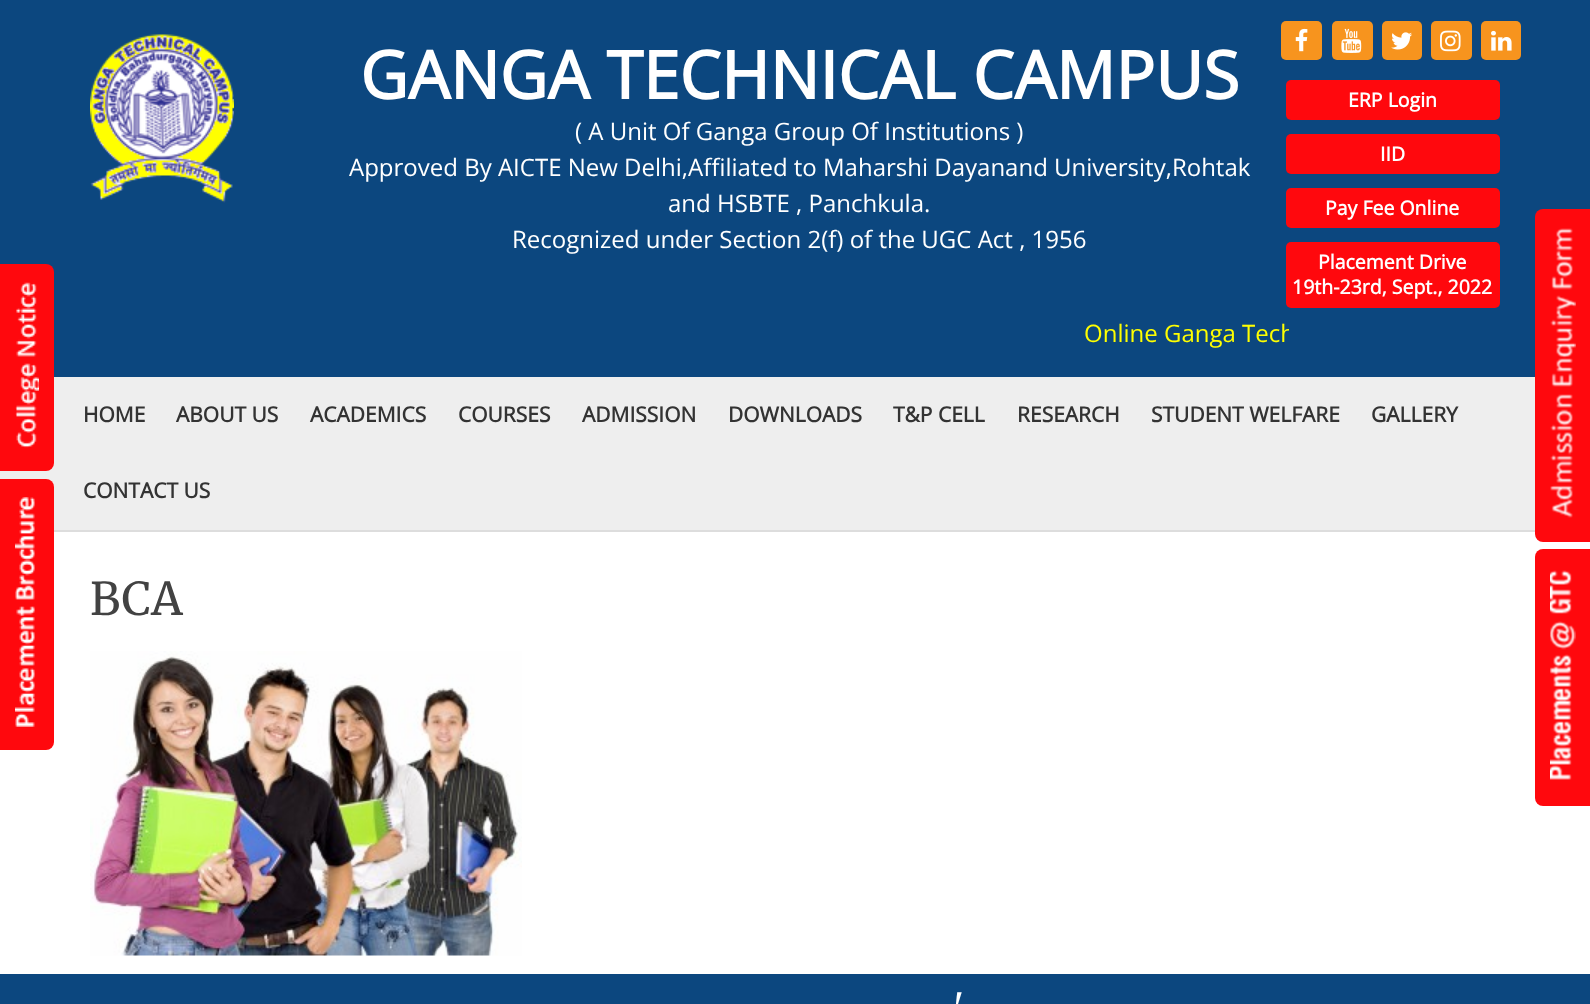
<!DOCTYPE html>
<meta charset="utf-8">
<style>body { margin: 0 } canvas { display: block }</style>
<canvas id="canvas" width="1590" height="1004"></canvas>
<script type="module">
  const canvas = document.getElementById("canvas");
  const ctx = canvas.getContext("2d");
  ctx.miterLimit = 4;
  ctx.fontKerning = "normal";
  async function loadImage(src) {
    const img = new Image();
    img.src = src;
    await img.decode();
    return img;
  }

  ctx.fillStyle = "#ffffff";
  ctx.fillRect(0, 0, 1590, 1004);
  ctx.fillStyle = "#0c477f";
  ctx.fillRect(0, 0, 1590, 377);
  ctx.fillStyle = "#eeeeee";
  ctx.fillRect(0, 377, 1535, 153);
  ctx.fillStyle = "#ff080d";
  ctx.beginPath();
  ctx.roundRect(0, 264, 54, 207, [0, 8, 8, 0]);
  ctx.fill();
  ctx.drawImage(await loadImage("img1.png"), 15, 282, 24, 166);
  ctx.beginPath();
  ctx.roundRect(0, 479, 54, 271, [0, 8, 8, 0]);
  ctx.fill();
  ctx.drawImage(await loadImage("img2.png"), 15, 497, 20, 230);
  ctx.drawImage(await loadImage("img3.png"), 90, 34, 144, 169);
  ctx.fillStyle = "#f7941e";
  ctx.beginPath();
  ctx.roundRect(1281, 21, 41, 39, 5);
  ctx.fill();
  ctx.drawImage(await loadImage("img4.png"), 1295, 28, 13, 24);
  ctx.beginPath();
  ctx.roundRect(1332, 21, 41, 39, 5);
  ctx.fill();
  ctx.drawImage(await loadImage("img5.png"), 1341, 28, 21, 25);
  ctx.beginPath();
  ctx.roundRect(1382, 21, 40, 39, 5);
  ctx.fill();
  ctx.drawImage(await loadImage("img6.png"), 1391, 32, 21, 18);
  ctx.beginPath();
  ctx.roundRect(1431, 21, 41, 39, 5);
  ctx.fill();
  ctx.drawImage(await loadImage("img7.png"), 1440, 30, 21, 22);
  ctx.beginPath();
  ctx.roundRect(1481, 21, 40, 39, 5);
  ctx.fill();
  ctx.drawImage(await loadImage("img8.png"), 1491, 30, 21, 21);
  ctx.font = "bold 66px Open Sans";
  ctx.fillStyle = "#ffffff";
  ctx.fillText("GANGA TECHNICAL CAMPUS", 360, 99);
  ctx.font = "24px Open Sans";
  ctx.fillText("( A Unit Of Ganga Group Of Institutions )", 575, 140);
  ctx.fillText("Approved By AICTE New Delhi,Affiliated to Maharshi Dayanand University,Rohtak", 349, 176);
  ctx.fillText("and HSBTE , Panchkula.", 668, 212);
  ctx.fillText("Recognized under Section 2(f) of the UGC Act , 1956", 512, 248);
  ctx.fillStyle = "#ff080d";
  ctx.beginPath();
  ctx.roundRect(1286, 80, 214, 40, 5);
  ctx.fill();
  ctx.font = "bold 19.5px Open Sans";
  ctx.fillStyle = "#ffffff";
  ctx.fillText("ERP Login", 1348, 107);
  ctx.fillStyle = "#ff080d";
  ctx.beginPath();
  ctx.roundRect(1286, 134, 214, 40, 5);
  ctx.fill();
  ctx.fillStyle = "#ffffff";
  ctx.fillText("IID", 1380, 161);
  ctx.fillStyle = "#ff080d";
  ctx.beginPath();
  ctx.roundRect(1286, 188, 214, 40, 5);
  ctx.fill();
  ctx.fillStyle = "#ffffff";
  ctx.fillText("Pay Fee Online", 1325, 215);
  ctx.fillStyle = "#ff080d";
  ctx.beginPath();
  ctx.roundRect(1286, 242, 214, 66, 5);
  ctx.fill();
  ctx.fillStyle = "#ffffff";
  ctx.fillText("Placement Drive", 1318, 269);
  ctx.fillText("19th-23rd, Sept., 2022", 1292, 294);
  ctx.save();
  ctx.beginPath();
  ctx.rect(302, 321, 987, 30);
  ctx.clip();
  ctx.font = "24px Open Sans";
  ctx.fillStyle = "#ffff00";
  ctx.fillText("Online Ganga Tech", 1084, 342);
  ctx.restore();
  ctx.fillStyle = "#ff080d";
  ctx.beginPath();
  ctx.roundRect(1535, 209, 55, 333, [8, 0, 0, 8]);
  ctx.fill();
  ctx.drawImage(await loadImage("img9.png"), 1550, 228, 26, 290);
  ctx.beginPath();
  ctx.roundRect(1535, 549, 55, 257, [8, 0, 0, 8]);
  ctx.fill();
  ctx.drawImage(await loadImage("img10.png"), 1550, 570, 26, 210);
  ctx.fillStyle = "#dddddd";
  ctx.fillRect(54, 530, 1481, 2);
  ctx.font = "bold 21px Open Sans";
  ctx.fillStyle = "#333333";
  ctx.fillText("HOME", 83, 422);
  ctx.fillText("ABOUT US", 176, 422);
  ctx.fillText("ACADEMICS", 310, 422);
  ctx.fillText("COURSES", 458, 422);
  ctx.fillText("ADMISSION", 582, 422);
  ctx.fillText("DOWNLOADS", 728, 422);
  ctx.fillText("T&P CELL", 893, 422);
  ctx.fillText("RESEARCH", 1017, 422);
  ctx.fillText("STUDENT WELFARE", 1151, 422);
  ctx.fillText("GALLERY", 1371, 422);
  ctx.fillText("CONTACT US", 83, 498);
  ctx.font = "45px Merriweather";
  ctx.fillStyle = "#424242";
  ctx.fillText("BCA", 90, 615);
  ctx.drawImage(await loadImage("img11.png"), 90, 651, 432, 305);
  ctx.fillStyle = "#0c477f";
  ctx.fillRect(0, 974, 1590, 30);
  ctx.font = "500 36px Merriweather";
  ctx.fillStyle = "#ffffff";
  ctx.fillText("'", 953, 1022);
</script>
